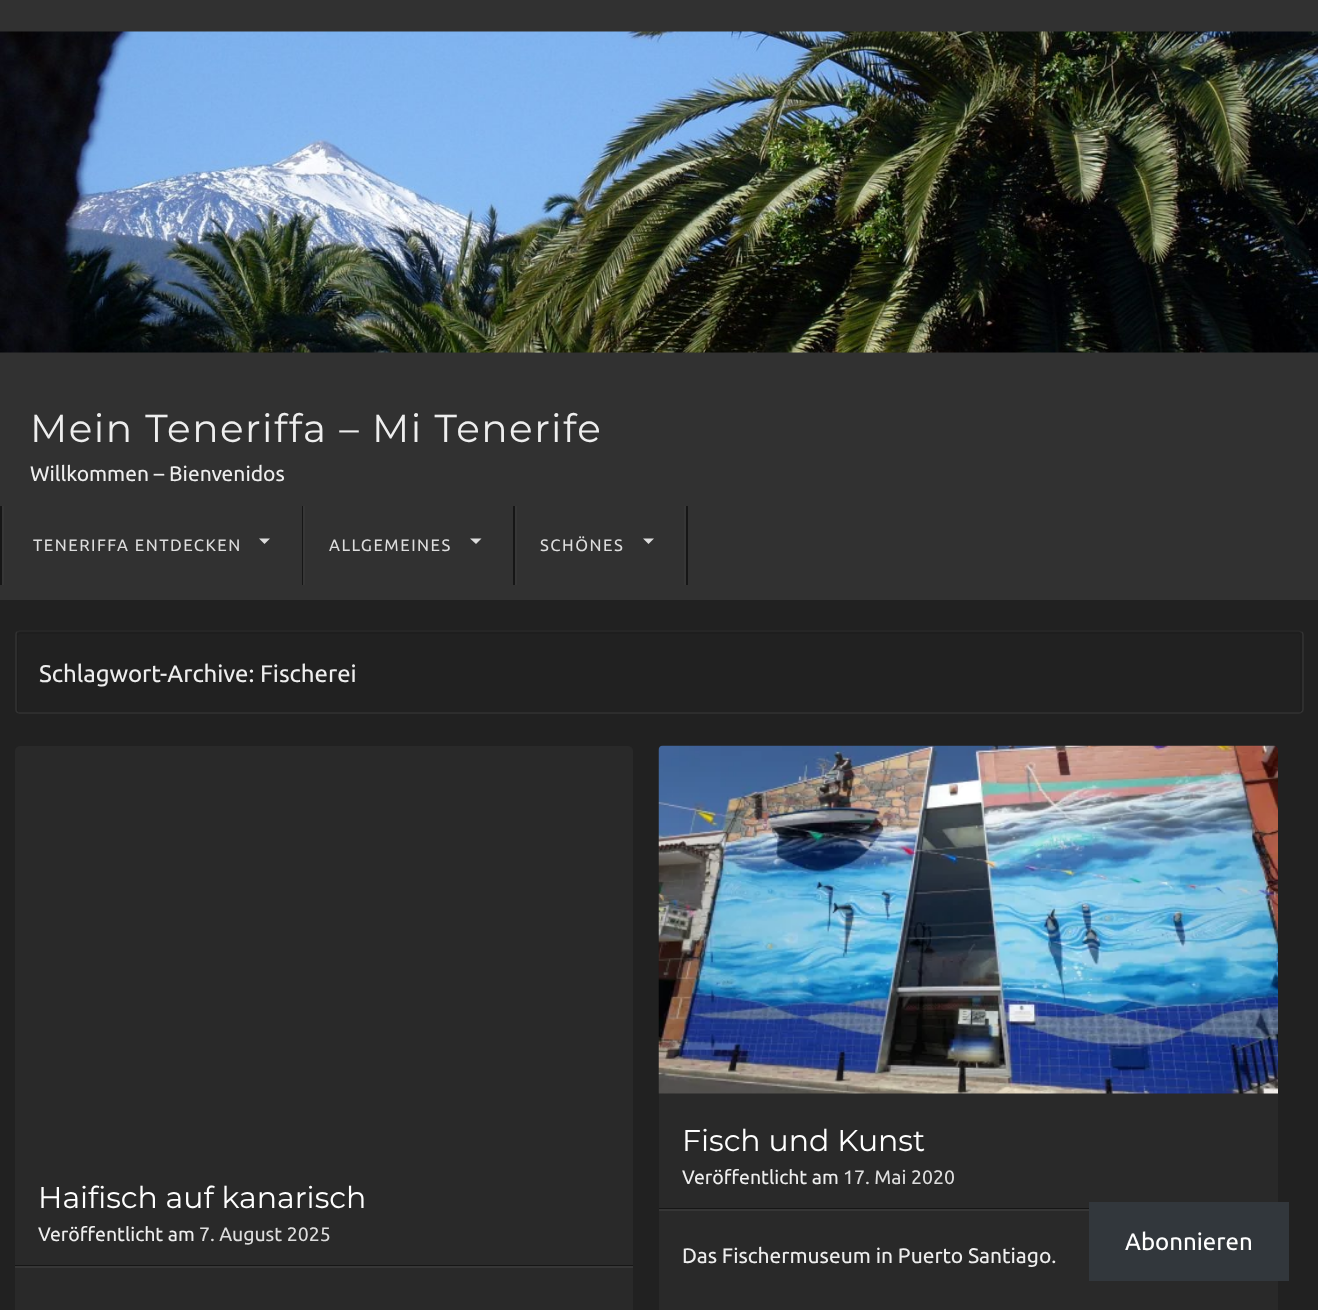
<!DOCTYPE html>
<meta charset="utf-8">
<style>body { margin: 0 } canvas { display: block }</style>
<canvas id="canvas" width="1318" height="1310"></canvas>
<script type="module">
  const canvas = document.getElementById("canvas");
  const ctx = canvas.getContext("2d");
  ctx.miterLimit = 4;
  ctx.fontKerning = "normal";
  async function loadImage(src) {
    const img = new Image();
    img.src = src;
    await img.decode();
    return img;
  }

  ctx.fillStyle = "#212121";
  ctx.fillRect(0, 0, 1318, 1310);
  ctx.fillStyle = "#313131";
  ctx.fillRect(0, 0, 1318, 600);
  ctx.drawImage(await loadImage("img1.png"), 0, 31, 1318, 322);
  ctx.letterSpacing = "1.5px";
  ctx.font = "100 39px Montserrat";
  ctx.fillStyle = "#eeeeee";
  ctx.fillText("Mein Teneriffa – Mi Tenerife", 30, 442);
  ctx.letterSpacing = "0px";
  ctx.font = "21px Ubuntu";
  ctx.fillText("Willkommen – Bienvenidos", 30, 481);
  ctx.fillStyle = "#161616";
  ctx.fillRect(0, 506, 2, 79);
  ctx.fillStyle = "#363636";
  ctx.fillRect(2, 506, 2, 79);
  ctx.letterSpacing = "1.5px";
  ctx.font = "16.5px Ubuntu";
  ctx.fillStyle = "#dddddd";
  ctx.fillText("TENERIFFA ENTDECKEN", 33, 551);
  ctx.beginPath();
  ctx.moveTo(259, 538.5);
  ctx.lineTo(264.5, 544);
  ctx.lineTo(270, 538.5);
  ctx.closePath();
  ctx.fill();
  ctx.fillStyle = "#161616";
  ctx.fillRect(302, 506, 1, 79);
  ctx.fillStyle = "#363636";
  ctx.fillRect(303, 506, 2, 79);
  ctx.fillStyle = "#dddddd";
  ctx.fillText("ALLGEMEINES", 329, 551);
  ctx.beginPath();
  ctx.moveTo(470, 538.5);
  ctx.lineTo(476, 544);
  ctx.lineTo(481.5, 538.5);
  ctx.closePath();
  ctx.fill();
  ctx.fillStyle = "#161616";
  ctx.fillRect(686, 506, 2, 79);
  ctx.fillRect(513, 506, 2, 79);
  ctx.fillStyle = "#363636";
  ctx.fillRect(684, 506, 2, 79);
  ctx.fillRect(515, 506, 2, 79);
  ctx.fillStyle = "#dddddd";
  ctx.fillText("SCHÖNES", 540, 551);
  ctx.beginPath();
  ctx.moveTo(643, 538.5);
  ctx.lineTo(648.5, 544);
  ctx.lineTo(654, 538.5);
  ctx.closePath();
  ctx.fill();
  ctx.fillStyle = "#1e1e1e";
  ctx.beginPath();
  ctx.moveTo(20, 632);
  ctx.bezierCurveTo(18, 632, 17, 633, 17, 635);
  ctx.lineTo(17, 710);
  ctx.bezierCurveTo(17, 712, 18, 713, 20, 713);
  ctx.lineTo(1299, 713);
  ctx.bezierCurveTo(1301, 713, 1302, 712, 1302, 710);
  ctx.lineTo(1302, 635);
  ctx.bezierCurveTo(1302, 633, 1301, 632, 1299, 632);
  ctx.closePath();
  ctx.moveTo(20, 634);
  ctx.bezierCurveTo(19, 634, 18, 635, 18, 636);
  ctx.lineTo(18, 711);
  ctx.bezierCurveTo(18, 712, 19, 712, 20, 712);
  ctx.lineTo(1299, 712);
  ctx.bezierCurveTo(1300, 712, 1300, 712, 1300, 711);
  ctx.lineTo(1300, 636);
  ctx.bezierCurveTo(1300, 635, 1300, 634, 1299, 634);
  ctx.closePath();
  ctx.fill("evenodd");
  ctx.beginPath();
  ctx.moveTo(17, 632);
  ctx.lineTo(19.5, 631);
  ctx.lineTo(1299, 631);
  ctx.lineTo(1301.5, 632);
  ctx.strokeStyle = "#292929";
  ctx.lineWidth = 1.5;
  ctx.stroke();
  ctx.beginPath();
  ctx.moveTo(1301.5, 632);
  ctx.bezierCurveTo(1302.5, 632.5, 1303, 633.5, 1303, 634.5);
  ctx.lineTo(1303, 709.5);
  ctx.bezierCurveTo(1303, 710.5, 1302.5, 711.5, 1301.5, 712);
  ctx.bezierCurveTo(1301, 713, 1300, 713, 1299, 713);
  ctx.lineTo(19.5, 713);
  ctx.bezierCurveTo(18.5, 713, 17.5, 713, 17, 712);
  ctx.bezierCurveTo(16, 711.5, 16, 710.5, 16, 709.5);
  ctx.lineTo(16, 634.5);
  ctx.bezierCurveTo(16, 633.5, 16, 632.5, 17, 632);
  ctx.strokeStyle = "#333333";
  ctx.stroke();
  ctx.letterSpacing = "0px";
  ctx.font = "24px Ubuntu";
  ctx.fillStyle = "#eeeeee";
  ctx.fillText("Schlagwort-Archive: Fischerei", 39, 682);
  ctx.fillStyle = "#292929";
  ctx.beginPath();
  ctx.roundRect(15, 746, 618, 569, 5);
  ctx.fill();
  ctx.fillStyle = "#161616";
  ctx.fillRect(15, 1265, 618, 1);
  ctx.font = "100 30px Montserrat";
  ctx.fillStyle = "#ffffff";
  ctx.fillText("Haifisch auf kanarisch", 38, 1208);
  ctx.font = "19.5px Ubuntu";
  ctx.fillStyle = "#eeeeee";
  ctx.fillText("Veröffentlicht am", 38, 1241);
  ctx.fillStyle = "#dddddd";
  ctx.fillText("7. August 2025", 199, 1241);
  ctx.fillStyle = "#363636";
  ctx.fillRect(15, 1266, 618, 2);
  ctx.fillStyle = "#292929";
  ctx.beginPath();
  ctx.roundRect(659, 746, 619, 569, 5);
  ctx.fill();
  ctx.drawImage(await loadImage("img2.png"), 658, 745, 620, 349);
  ctx.fillStyle = "#161616";
  ctx.fillRect(659, 1208, 430, 1);
  ctx.font = "100 30px Montserrat";
  ctx.fillStyle = "#ffffff";
  ctx.fillText("Fisch und Kunst", 682, 1151);
  ctx.font = "19.5px Ubuntu";
  ctx.fillStyle = "#eeeeee";
  ctx.fillText("Veröffentlicht am", 682, 1184);
  ctx.fillStyle = "#dddddd";
  ctx.fillText("17. Mai 2020", 843, 1184);
  ctx.fillStyle = "#363636";
  ctx.fillRect(659, 1209, 430, 2);
  ctx.font = "21px Ubuntu";
  ctx.fillStyle = "#eeeeee";
  ctx.fillText("Das Fischermuseum in Puerto Santiago.", 682, 1263);
  ctx.fillStyle = "#32373c";
  ctx.fillRect(1089, 1202, 200, 79);
  ctx.font = "24px Ubuntu";
  ctx.fillStyle = "#ffffff";
  ctx.fillText("Abonnieren", 1125, 1250);
</script>
